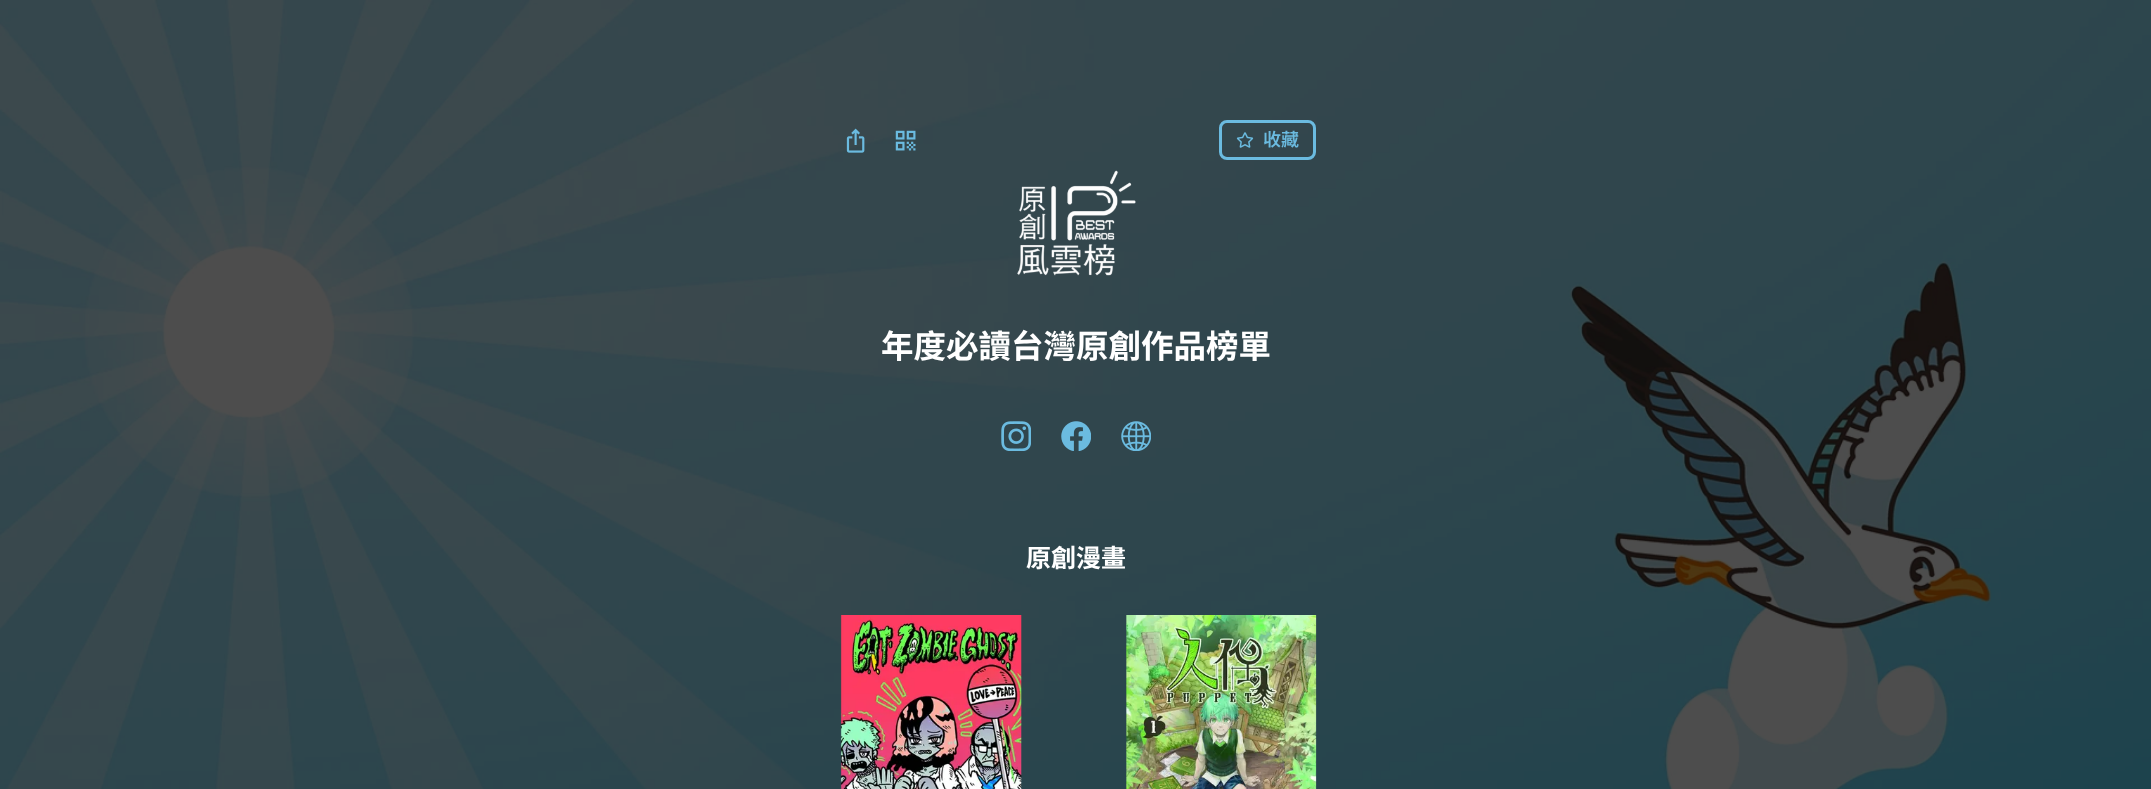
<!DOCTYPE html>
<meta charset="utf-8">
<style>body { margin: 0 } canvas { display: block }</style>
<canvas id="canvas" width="2151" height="789"></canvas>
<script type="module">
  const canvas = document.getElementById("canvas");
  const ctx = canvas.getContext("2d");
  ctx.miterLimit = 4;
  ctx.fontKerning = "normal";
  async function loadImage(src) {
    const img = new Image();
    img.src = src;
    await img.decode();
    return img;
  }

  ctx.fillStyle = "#000000";
  ctx.fillRect(0, 0, 2151, 789);
  ctx.drawImage(await loadImage("img1.png"), 0, 0, 2151, 789);
  ctx.drawImage(await loadImage("img2.png"), 846, 128, 19, 25);
  ctx.drawImage(await loadImage("img3.png"), 895, 130, 21, 21);
  ctx.beginPath();
  ctx.roundRect(1220.5, 121.5, 94, 37, 6.5);
  ctx.strokeStyle = "#6bbbe0";
  ctx.lineWidth = 3;
  ctx.stroke();
  ctx.drawImage(await loadImage("img4.png"), 1236, 132, 18, 16);
  ctx.font = "600 18px Noto Sans TC";
  ctx.fillStyle = "#6bbbe0";
  ctx.fillText("收藏", 1263, 146);
  ctx.drawImage(await loadImage("img5.png"), 1017, 170, 119, 106);
  ctx.font = "bold 32.5px Noto Sans TC";
  ctx.fillStyle = "#ffffff";
  ctx.fillText("年度必讀台灣原創作品榜單", 881, 358);
  ctx.drawImage(await loadImage("img6.png"), 1001, 421, 30, 30);
  ctx.drawImage(await loadImage("img7.png"), 1061, 421, 30, 30);
  ctx.drawImage(await loadImage("img8.png"), 1121, 421, 30, 30);
  ctx.font = "bold 25px Noto Sans TC";
  ctx.fillText("原創漫畫", 1026, 567);
  ctx.drawImage(await loadImage("img9.png"), 840, 615, 182, 174);
  ctx.drawImage(await loadImage("img10.png"), 1126, 615, 191, 174);
</script>
